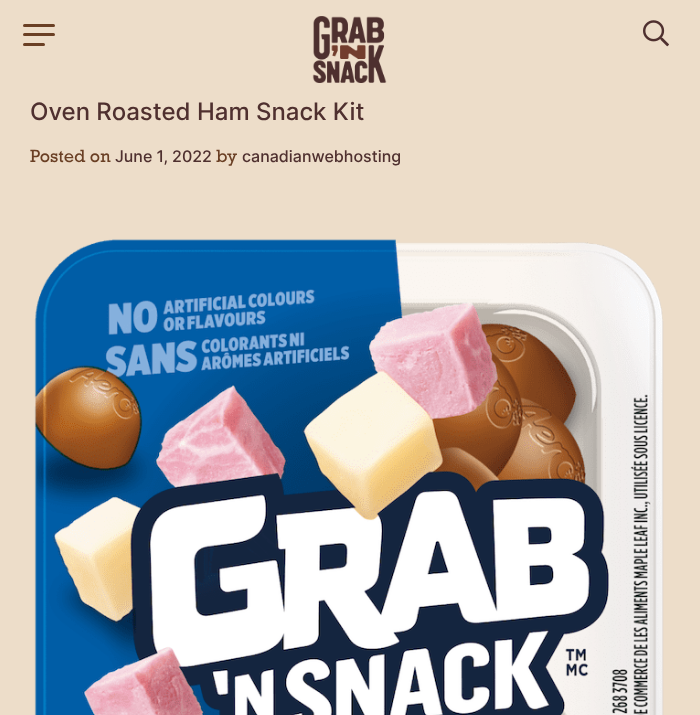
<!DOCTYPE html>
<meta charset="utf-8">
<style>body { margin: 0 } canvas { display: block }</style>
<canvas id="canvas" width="700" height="715"></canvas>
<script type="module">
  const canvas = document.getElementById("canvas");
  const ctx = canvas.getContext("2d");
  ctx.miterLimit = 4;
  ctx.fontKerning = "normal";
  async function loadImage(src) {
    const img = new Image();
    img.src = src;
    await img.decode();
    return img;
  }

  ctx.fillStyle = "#edddc9";
  ctx.fillRect(0, 0, 700, 715);
  ctx.fillStyle = "#6a3f24";
  ctx.beginPath();
  ctx.roundRect(23, 24, 32, 3, 1.5);
  ctx.fill();
  ctx.beginPath();
  ctx.roundRect(23, 33, 32, 3, 1.5);
  ctx.fill();
  ctx.beginPath();
  ctx.roundRect(23, 43, 22, 3, 1.5);
  ctx.fill();
  ctx.drawImage(await loadImage("img1.png"), 312, 16, 75, 67);
  ctx.drawImage(await loadImage("img2.png"), 643, 20, 26, 27);
  ctx.font = "500 24px Inter";
  ctx.fillStyle = "#4f302f";
  ctx.fillText("Oven Roasted Ham Snack Kit", 30, 120);
  ctx.font = "18px Rockwell";
  ctx.fillStyle = "#6a3f24";
  ctx.fillText("Posted on", 30, 162);
  ctx.font = "500 16px Inter";
  ctx.fillStyle = "#4f302f";
  ctx.fillText("June 1, 2022", 115, 162);
  ctx.font = "18px Rockwell";
  ctx.fillStyle = "#6a3f24";
  ctx.fillText("by", 216, 162);
  ctx.font = "500 16px Inter";
  ctx.fillStyle = "#4f302f";
  ctx.fillText("canadianwebhosting", 242, 162);
  ctx.drawImage(await loadImage("img3.png"), 34, 239, 630, 476);
</script>
